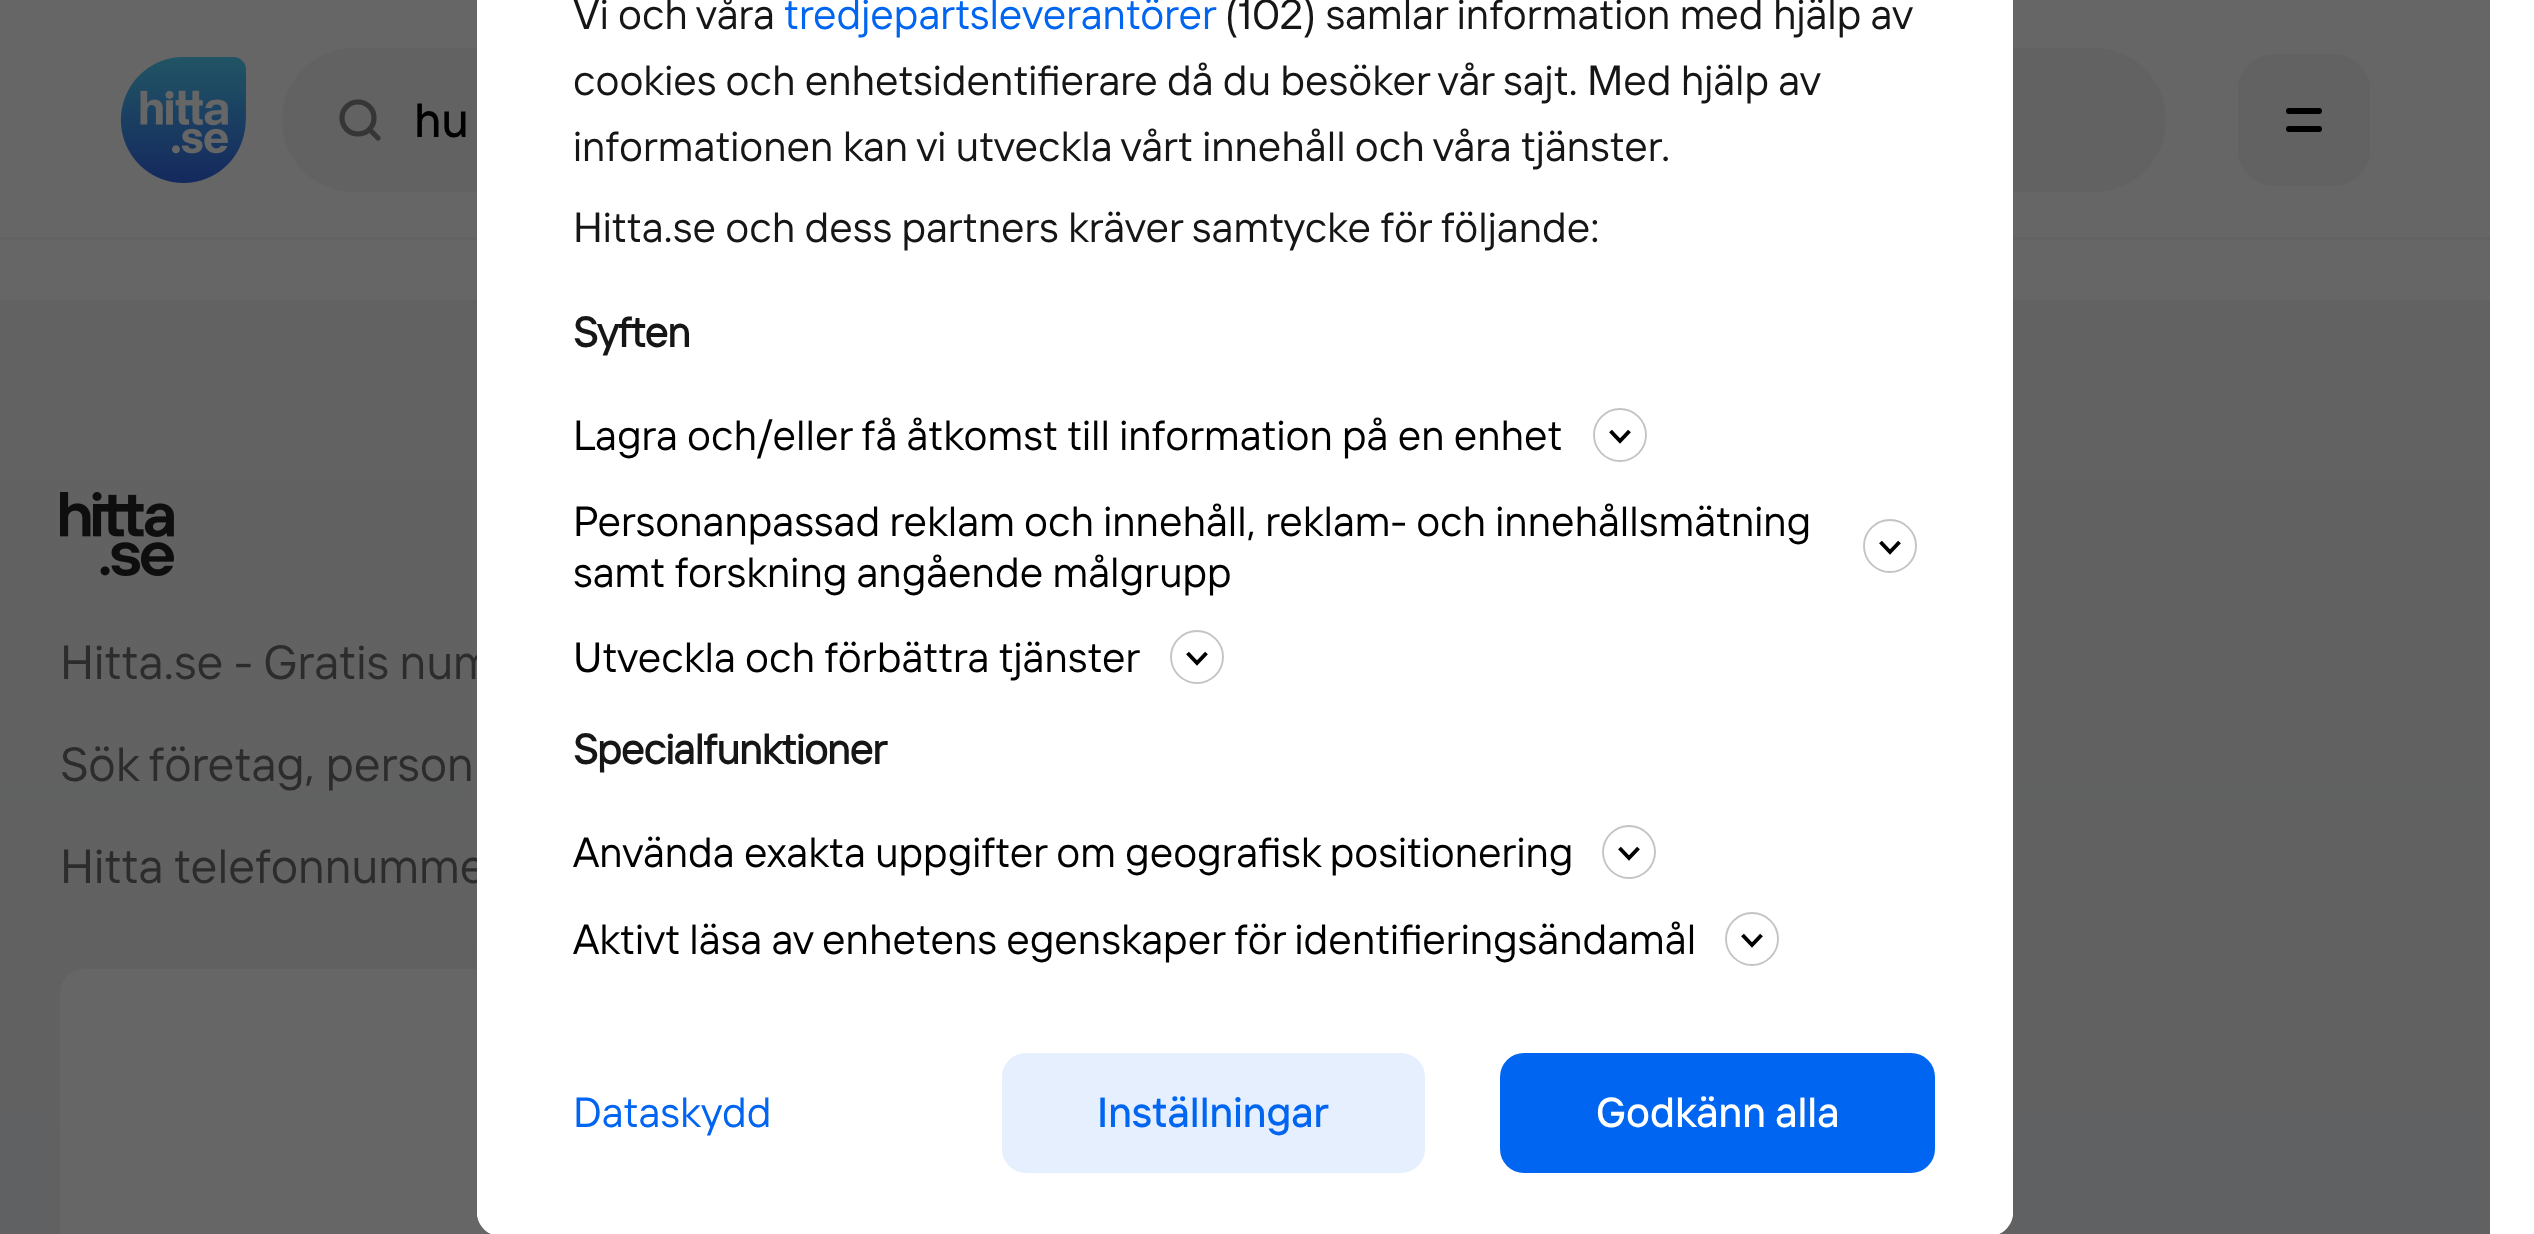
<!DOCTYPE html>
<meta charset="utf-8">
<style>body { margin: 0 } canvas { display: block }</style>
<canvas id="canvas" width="2534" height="1234"></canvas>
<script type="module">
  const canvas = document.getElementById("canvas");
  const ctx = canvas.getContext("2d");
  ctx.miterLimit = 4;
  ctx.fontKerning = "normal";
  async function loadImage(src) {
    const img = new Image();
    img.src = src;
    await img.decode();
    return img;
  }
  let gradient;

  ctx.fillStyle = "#ffffff";
  ctx.fillRect(0, 0, 2534, 1234);
  ctx.fillStyle = "#666666";
  ctx.fillRect(0, 240, 2490, 60);
  ctx.fillRect(0, 0, 2490, 237);
  ctx.fillStyle = "#626262";
  ctx.fillRect(0, 237, 2490, 3);
  ctx.drawImage(await loadImage("img1.png"), 120, 57, 126, 126);
  ctx.beginPath();
  ctx.roundRect(282, 48, 1884, 144, 72);
  ctx.fill();
  ctx.beginPath();
  ctx.moveTo(378, 138);
  ctx.lineTo(369.5, 129.5);
  ctx.moveTo(358, 134);
  ctx.bezierCurveTo(367, 134, 374, 127, 374, 118);
  ctx.bezierCurveTo(374, 109, 367, 102, 358, 102);
  ctx.bezierCurveTo(349, 102, 342, 109, 342, 118);
  ctx.bezierCurveTo(342, 127, 349, 134, 358, 134);
  ctx.closePath();
  ctx.strokeStyle = "#363636";
  ctx.lineWidth = 5.2;
  ctx.lineCap = "round";
  ctx.lineJoin = "round";
  ctx.stroke();
  ctx.font = "500 48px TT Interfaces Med";
  ctx.fillStyle = "#000000";
  ctx.fillText("hu", 414, 137);
  ctx.fillStyle = "#626262";
  ctx.beginPath();
  ctx.roundRect(2238, 54, 132, 132, 36);
  ctx.fill();
  ctx.beginPath();
  ctx.moveTo(2289, 111);
  ctx.lineTo(2319, 111);
  ctx.moveTo(2289, 129);
  ctx.lineTo(2319, 129);
  ctx.strokeStyle = "#000000";
  ctx.lineWidth = 6;
  ctx.stroke();
  gradient = ctx.createLinearGradient(1245, 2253, 1245, 300);
  gradient.addColorStop(0, "#5f6062");
  gradient.addColorStop(1, "#626262");
  ctx.fillStyle = gradient;
  ctx.fillRect(0, 300, 2490, 934);
  ctx.drawImage(await loadImage("img2.png"), 60, 492, 114, 84);
  ctx.font = "48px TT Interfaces";
  ctx.fillStyle = "#2c2c2c";
  ctx.fillText("Hitta.se - Gratis num", 60, 679);
  ctx.fillText("Sök företag, person", 60, 781);
  ctx.fillText("Hitta telefonnumme", 60, 883);
  ctx.fillStyle = "#666666";
  ctx.beginPath();
  ctx.roundRect(60, 969, 1620, 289, 24);
  ctx.fill();
  ctx.fillStyle = "#ffffff";
  ctx.beginPath();
  ctx.moveTo(477, 0);
  ctx.lineTo(2013, 0);
  ctx.lineTo(2013, 1212);
  ctx.bezierCurveTo(2013, 1225.5, 2002.5, 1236, 1989, 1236);
  ctx.lineTo(501, 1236);
  ctx.bezierCurveTo(487.5, 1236, 477, 1225.5, 477, 1212);
  ctx.closePath();
  ctx.fill();
  ctx.font = "42px TT Interfaces";
  ctx.fillStyle = "#161616";
  ctx.fillText("Vi och våra", 573, 29);
  ctx.fillStyle = "#0065f1";
  ctx.fillText("tredjepartsleverantörer", 784, 29);
  ctx.fillStyle = "#161616";
  ctx.fillText("(102) samlar information med hjälp av", 1225, 29);
  ctx.wordSpacing = "-0.1px";
  ctx.fillText("cookies och enhetsidentifierare då du besöker vår sajt. Med hjälp av", 573, 95);
  ctx.wordSpacing = "0px";
  ctx.fillText("informationen kan vi utveckla vårt innehåll och våra tjänster.", 573, 161);
  ctx.fillText("Hitta.se och dess partners kräver samtycke för följande:", 573, 242);
  ctx.letterSpacing = "-0.8px";
  ctx.font = "bold 42px TT Interfaces";
  ctx.fillText("Syften", 573, 347);
  ctx.letterSpacing = "0px";
  ctx.font = "42px TT Interfaces";
  ctx.fillStyle = "#000000";
  ctx.fillText("Lagra och/eller få åtkomst till information på en enhet", 573, 450);
  ctx.beginPath();
  ctx.moveTo(1610.5, 431);
  ctx.lineTo(1620, 441);
  ctx.lineTo(1629.5, 431);
  ctx.lineWidth = 3.9;
  ctx.lineCap = "butt";
  ctx.lineJoin = "miter";
  ctx.stroke();
  ctx.beginPath();
  ctx.arc(1620, 435, 26, 0, Math.PI * 2);
  ctx.strokeStyle = "#c4c4c4";
  ctx.lineWidth = 1.9;
  ctx.stroke();
  ctx.fillText("Personanpassad reklam och innehåll, reklam- och innehållsmätning", 573, 536);
  ctx.beginPath();
  ctx.moveTo(1880.5, 542);
  ctx.lineTo(1890, 552);
  ctx.lineTo(1899.5, 542);
  ctx.strokeStyle = "#000000";
  ctx.lineWidth = 3.9;
  ctx.stroke();
  ctx.beginPath();
  ctx.arc(1890, 546, 26, 0, Math.PI * 2);
  ctx.strokeStyle = "#c4c4c4";
  ctx.lineWidth = 1.9;
  ctx.stroke();
  ctx.fillText("samt forskning angående målgrupp", 573, 587);
  ctx.fillText("Utveckla och förbättra tjänster", 573, 672);
  ctx.beginPath();
  ctx.moveTo(1187.5, 653);
  ctx.lineTo(1197, 663);
  ctx.lineTo(1206.5, 653);
  ctx.strokeStyle = "#000000";
  ctx.lineWidth = 3.9;
  ctx.stroke();
  ctx.beginPath();
  ctx.arc(1197, 657, 26, 0, Math.PI * 2);
  ctx.strokeStyle = "#c4c4c4";
  ctx.lineWidth = 1.9;
  ctx.stroke();
  ctx.letterSpacing = "-0.8px";
  ctx.font = "bold 42px TT Interfaces";
  ctx.fillStyle = "#161616";
  ctx.fillText("Specialfunktioner", 573, 764);
  ctx.letterSpacing = "0px";
  ctx.font = "42px TT Interfaces";
  ctx.fillStyle = "#000000";
  ctx.fillText("Använda exakta uppgifter om geografisk positionering", 573, 867);
  ctx.beginPath();
  ctx.moveTo(1619.5, 848);
  ctx.lineTo(1629, 858);
  ctx.lineTo(1638.5, 848);
  ctx.strokeStyle = "#000000";
  ctx.lineWidth = 3.9;
  ctx.stroke();
  ctx.beginPath();
  ctx.arc(1629, 852, 26, 0, Math.PI * 2);
  ctx.strokeStyle = "#c4c4c4";
  ctx.lineWidth = 1.9;
  ctx.stroke();
  ctx.fillText("Aktivt läsa av enhetens egenskaper för identifieringsändamål", 573, 954);
  ctx.beginPath();
  ctx.moveTo(1742.5, 935);
  ctx.lineTo(1752, 945);
  ctx.lineTo(1761.5, 935);
  ctx.strokeStyle = "#000000";
  ctx.lineWidth = 3.9;
  ctx.stroke();
  ctx.beginPath();
  ctx.arc(1752, 939, 26, 0, Math.PI * 2);
  ctx.strokeStyle = "#c4c4c4";
  ctx.lineWidth = 1.9;
  ctx.stroke();
  ctx.fillStyle = "#ffffff";
  ctx.beginPath();
  ctx.moveTo(477, 1038);
  ctx.lineTo(2013, 1038);
  ctx.lineTo(2013, 1212);
  ctx.bezierCurveTo(2013, 1225.5, 2002.5, 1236, 1989, 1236);
  ctx.lineTo(501, 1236);
  ctx.bezierCurveTo(487.5, 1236, 477, 1225.5, 477, 1212);
  ctx.closePath();
  ctx.fill();
  ctx.fillStyle = "#0065f1";
  ctx.fillText("Dataskydd", 573, 1127);
  ctx.fillStyle = "#e6effd";
  ctx.beginPath();
  ctx.roundRect(1002, 1053, 423, 120, 24);
  ctx.fill();
  ctx.font = "500 42px TT Interfaces Med";
  ctx.fillStyle = "#0065f1";
  ctx.fillText("Inställningar", 1097, 1127);
  ctx.beginPath();
  ctx.roundRect(1500, 1053, 435, 120, 24);
  ctx.fill();
  ctx.fillStyle = "#ffffff";
  ctx.fillText("Godkänn alla", 1596, 1127);
</script>
